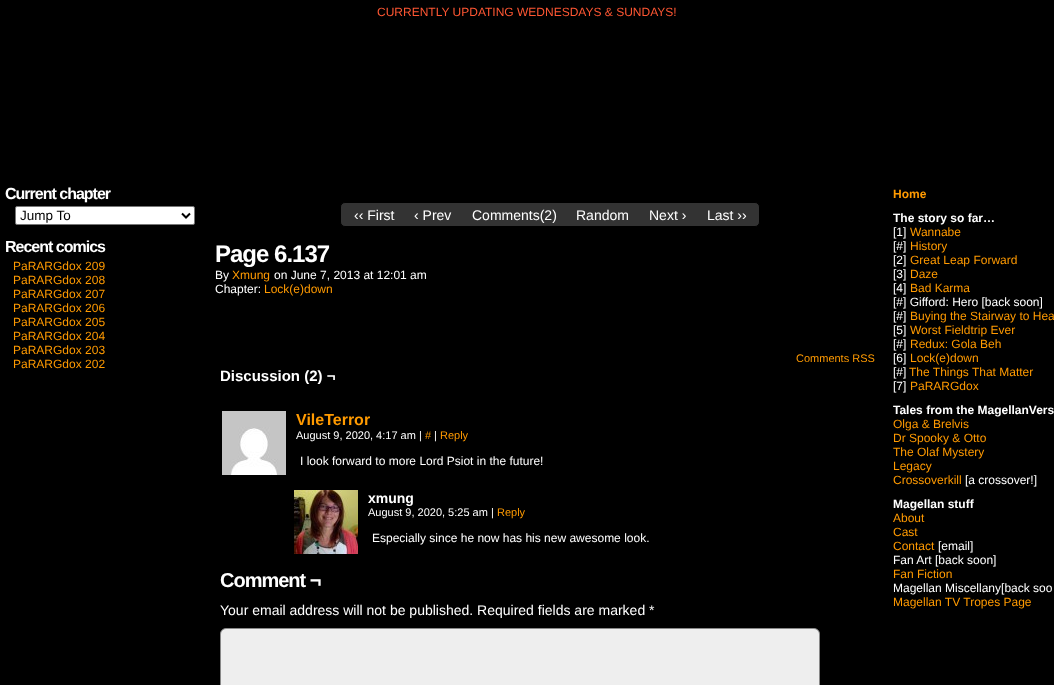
<!DOCTYPE html>
<meta charset="utf-8">
<style>body { margin: 0 } canvas { display: block }</style>
<canvas id="canvas" width="1054" height="685"></canvas>
<script type="module">
  const canvas = document.getElementById("canvas");
  const ctx = canvas.getContext("2d");
  ctx.miterLimit = 4;
  ctx.fontKerning = "normal";
  async function loadImage(src) {
    const img = new Image();
    img.src = src;
    await img.decode();
    return img;
  }

  ctx.fillStyle = "#000000";
  ctx.fillRect(0, 0, 1054, 685);
  ctx.font = "12px Liberation Sans";
  ctx.fillStyle = "#ff5733";
  ctx.fillText("CURRENTLY UPDATING WEDNESDAYS & SUNDAYS!", 377, 16);
  ctx.letterSpacing = "-1px";
  ctx.font = "bold 16px Liberation Sans";
  ctx.fillStyle = "#ffffff";
  ctx.fillText("Current chapter", 5, 199);
  ctx.beginPath();
  ctx.roundRect(15.5, 206.5, 179, 18, 1.5);
  ctx.fill();
  ctx.strokeStyle = "#767676";
  ctx.stroke();
  ctx.beginPath();
  ctx.moveTo(182, 213.5);
  ctx.lineTo(186, 217.5);
  ctx.lineTo(190, 213.5);
  ctx.strokeStyle = "#000000";
  ctx.lineWidth = 2;
  ctx.stroke();
  ctx.letterSpacing = "0px";
  ctx.font = "13.5px Liberation Sans";
  ctx.fillStyle = "#000000";
  ctx.fillText("Jump To", 20, 220);
  ctx.letterSpacing = "-1px";
  ctx.font = "bold 16px Liberation Sans";
  ctx.fillStyle = "#ffffff";
  ctx.fillText("Recent comics", 5, 252);
  ctx.letterSpacing = "0px";
  ctx.font = "12px Liberation Sans";
  ctx.fillStyle = "#ff9a00";
  ctx.fillText("PaRARGdox 209", 13, 270);
  ctx.fillText("PaRARGdox 208", 13, 284);
  ctx.fillText("PaRARGdox 207", 13, 298);
  ctx.fillText("PaRARGdox 206", 13, 312);
  ctx.fillText("PaRARGdox 205", 13, 326);
  ctx.fillText("PaRARGdox 204", 13, 340);
  ctx.fillText("PaRARGdox 203", 13, 354);
  ctx.fillText("PaRARGdox 202", 13, 368);
  ctx.fillStyle = "#333333";
  ctx.beginPath();
  ctx.roundRect(340.5, 202.5, 419, 24, 4.5);
  ctx.fill();
  ctx.lineWidth = 1;
  ctx.stroke();
  ctx.font = "14px Liberation Sans";
  ctx.fillStyle = "#ffffff";
  ctx.fillText("‹‹ First", 354, 220);
  ctx.fillText("‹ Prev", 414, 220);
  ctx.fillText("Comments(2)", 472, 220);
  ctx.fillText("Random", 576, 220);
  ctx.fillText("Next ›", 649, 220);
  ctx.fillText("Last ››", 707, 220);
  ctx.letterSpacing = "-1px";
  ctx.font = "bold 24px Liberation Sans";
  ctx.fillText("Page 6.137", 215, 262);
  ctx.letterSpacing = "0px";
  ctx.font = "12px Liberation Sans";
  ctx.fillText("By", 215, 279);
  ctx.fillStyle = "#ff9a00";
  ctx.fillText("Xmung", 232, 279);
  ctx.fillStyle = "#ffffff";
  ctx.fillText("on June 7, 2013 at 12:01 am", 274, 279);
  ctx.fillText("Chapter:", 215, 293);
  ctx.fillStyle = "#ff9a00";
  ctx.fillText("Lock(e)down", 264, 293);
  ctx.font = "11px Liberation Sans";
  ctx.fillText("Comments RSS", 796, 362);
  ctx.font = "bold 15px Liberation Sans";
  ctx.fillStyle = "#ffffff";
  ctx.fillText("Discussion (2) ¬", 220, 381);
  ctx.drawImage(await loadImage("img1.png"), 222, 411, 64, 64);
  ctx.font = "bold 16px Liberation Sans";
  ctx.fillStyle = "#ff9a00";
  ctx.fillText("VileTerror", 296, 425);
  ctx.font = "11px Liberation Sans";
  ctx.fillStyle = "#ffffff";
  ctx.fillText("August 9, 2020, 4:17 am |", 296, 439);
  ctx.fillStyle = "#ff9a00";
  ctx.fillText("#", 425, 439);
  ctx.fillStyle = "#ffffff";
  ctx.fillText("|", 434, 439);
  ctx.fillStyle = "#ff9a00";
  ctx.fillText("Reply", 440, 439);
  ctx.font = "12px Liberation Sans";
  ctx.fillStyle = "#ffffff";
  ctx.fillText("I look forward to more Lord Psiot in the future!", 300, 465);
  ctx.drawImage(await loadImage("img2.png"), 294, 490, 64, 64);
  ctx.font = "bold 14px Liberation Sans";
  ctx.fillText("xmung", 368, 503);
  ctx.font = "11px Liberation Sans";
  ctx.fillText("August 9, 2020, 5:25 am |", 368, 516);
  ctx.fillStyle = "#ff9a00";
  ctx.fillText("Reply", 497, 516);
  ctx.font = "12px Liberation Sans";
  ctx.fillStyle = "#ffffff";
  ctx.fillText("Especially since he now has his new awesome look.", 372, 542);
  ctx.letterSpacing = "-1px";
  ctx.font = "bold 20px Liberation Sans";
  ctx.fillText("Comment ¬", 220, 587);
  ctx.letterSpacing = "0px";
  ctx.font = "14px Liberation Sans";
  ctx.fillText("Your email address will not be published. Required fields are marked *", 220, 615);
  ctx.fillStyle = "#eeeeee";
  ctx.beginPath();
  ctx.roundRect(220.5, 628.5, 599, 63, 5.5);
  ctx.fill();
  ctx.strokeStyle = "#888888";
  ctx.stroke();
  ctx.font = "bold 12px Liberation Sans";
  ctx.fillStyle = "#ff9a00";
  ctx.fillText("Home", 893, 198);
  ctx.fillStyle = "#ffffff";
  ctx.fillText("The story so far…", 893, 222);
  ctx.font = "12px Liberation Sans";
  ctx.fillText("[1]", 893, 236);
  ctx.fillStyle = "#ff9a00";
  ctx.fillText("Wannabe", 910, 236);
  ctx.fillStyle = "#ffffff";
  ctx.fillText("[#]", 893, 250);
  ctx.fillStyle = "#ff9a00";
  ctx.fillText("History", 910, 250);
  ctx.fillStyle = "#ffffff";
  ctx.fillText("[2]", 893, 264);
  ctx.fillStyle = "#ff9a00";
  ctx.fillText("Great Leap Forward", 910, 264);
  ctx.fillStyle = "#ffffff";
  ctx.fillText("[3]", 893, 278);
  ctx.fillStyle = "#ff9a00";
  ctx.fillText("Daze", 910, 278);
  ctx.fillStyle = "#ffffff";
  ctx.fillText("[4]", 893, 292);
  ctx.fillStyle = "#ff9a00";
  ctx.fillText("Bad Karma", 910, 292);
  ctx.fillStyle = "#ffffff";
  ctx.fillText("[#] Gifford: Hero [back soon]", 893, 306);
  ctx.fillText("[#]", 893, 320);
  ctx.fillStyle = "#ff9a00";
  ctx.fillText("Buying the Stairway to Hea", 910, 320);
  ctx.fillStyle = "#ffffff";
  ctx.fillText("[5]", 893, 334);
  ctx.fillStyle = "#ff9a00";
  ctx.fillText("Worst Fieldtrip Ever", 910, 334);
  ctx.fillStyle = "#ffffff";
  ctx.fillText("[#]", 893, 348);
  ctx.fillStyle = "#ff9a00";
  ctx.fillText("Redux: Gola Beh", 910, 348);
  ctx.fillStyle = "#ffffff";
  ctx.fillText("[6]", 893, 362);
  ctx.fillStyle = "#ff9a00";
  ctx.fillText("Lock(e)down", 910, 362);
  ctx.fillStyle = "#ffffff";
  ctx.fillText("[#]", 893, 376);
  ctx.fillStyle = "#ff9a00";
  ctx.fillText("The Things That Matter", 909, 376);
  ctx.fillStyle = "#ffffff";
  ctx.fillText("[7]", 893, 390);
  ctx.fillStyle = "#ff9a00";
  ctx.fillText("PaRARGdox", 910, 390);
  ctx.font = "bold 12px Liberation Sans";
  ctx.fillStyle = "#ffffff";
  ctx.fillText("Tales from the MagellanVers", 893, 414);
  ctx.font = "12px Liberation Sans";
  ctx.fillStyle = "#ff9a00";
  ctx.fillText("Olga & Brelvis", 893, 428);
  ctx.fillText("Dr Spooky & Otto", 893, 442);
  ctx.fillText("The Olaf Mystery", 893, 456);
  ctx.fillText("Legacy", 893, 470);
  ctx.fillText("Crossoverkill", 893, 484);
  ctx.fillStyle = "#ffffff";
  ctx.fillText("[a crossover!]", 965, 484);
  ctx.font = "bold 12px Liberation Sans";
  ctx.fillText("Magellan stuff", 893, 508);
  ctx.font = "12px Liberation Sans";
  ctx.fillStyle = "#ff9a00";
  ctx.fillText("About", 893, 522);
  ctx.fillText("Cast", 893, 536);
  ctx.fillText("Contact", 893, 550);
  ctx.fillStyle = "#ffffff";
  ctx.fillText("[email]", 938, 550);
  ctx.fillText("Fan Art [back soon]", 893, 564);
  ctx.fillStyle = "#ff9a00";
  ctx.fillText("Fan Fiction", 893, 578);
  ctx.fillStyle = "#ffffff";
  ctx.fillText("Magellan Miscellany[back soo", 893, 592);
  ctx.fillStyle = "#ff9a00";
  ctx.fillText("Magellan TV Tropes Page", 893, 606);
</script>
